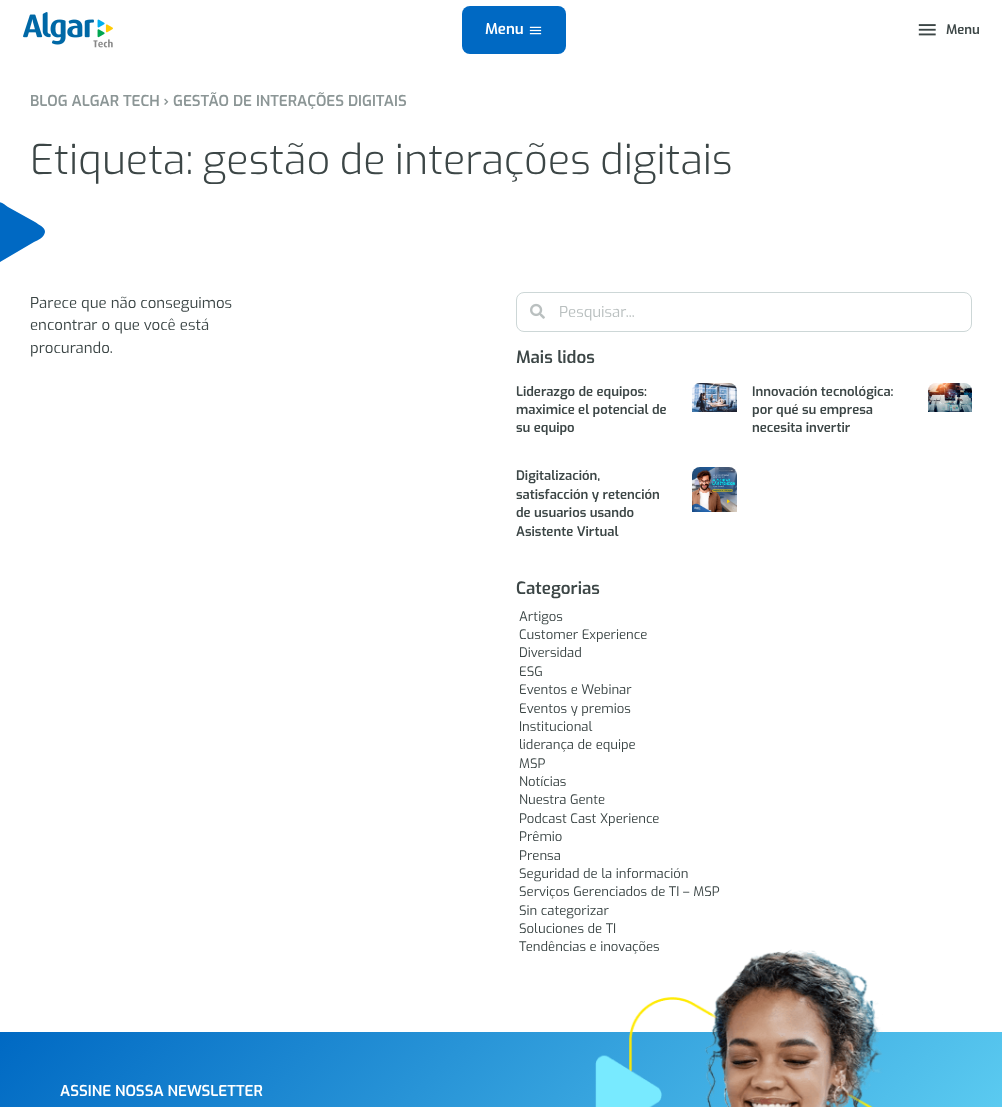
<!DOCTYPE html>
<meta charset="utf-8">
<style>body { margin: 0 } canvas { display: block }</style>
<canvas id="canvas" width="1002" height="1107"></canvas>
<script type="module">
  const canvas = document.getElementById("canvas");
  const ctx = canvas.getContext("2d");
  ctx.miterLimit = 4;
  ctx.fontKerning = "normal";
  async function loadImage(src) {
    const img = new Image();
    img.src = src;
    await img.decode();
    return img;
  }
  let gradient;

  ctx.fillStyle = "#ffffff";
  ctx.fillRect(0, 0, 1002, 1107);
  ctx.drawImage(await loadImage("img1.png"), 23, 12, 90, 36);
  ctx.fillStyle = "#0069c3";
  ctx.beginPath();
  ctx.roundRect(462, 6, 104, 48, 8);
  ctx.fill();
  ctx.font = "600 15px Exo";
  ctx.fillStyle = "#ffffff";
  ctx.fillText("Menu", 485, 34);
  ctx.drawImage(await loadImage("img2.png"), 529, 26, 13, 9);
  ctx.drawImage(await loadImage("img3.png"), 918, 24, 18, 12);
  ctx.font = "600 13.1px Exo";
  ctx.fillStyle = "#3c4646";
  ctx.fillText("Menu", 946, 34);
  ctx.font = "600 15px Exo";
  ctx.fillStyle = "#8c9696";
  ctx.fillText("BLOG ALGAR TECH › GESTÃO DE INTERAÇÕES DIGITAIS", 30, 106);
  ctx.wordSpacing = "-2px";
  ctx.font = "300 41.25px Exo";
  ctx.fillStyle = "#3c4646";
  ctx.fillText("Etiqueta: gestão de interações digitais", 30, 174);
  ctx.fillStyle = "#0069c3";
  ctx.beginPath();
  ctx.moveTo(-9, 209);
  ctx.bezierCurveTo(-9, 207, -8, 205, -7, 204);
  ctx.bezierCurveTo(-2, 199, 4, 204, 8, 207);
  ctx.lineTo(35, 222);
  ctx.bezierCurveTo(39, 225, 45, 227, 45, 232);
  ctx.bezierCurveTo(44, 238, 38, 240, 34, 242);
  ctx.lineTo(0, 262);
  ctx.bezierCurveTo(-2, 262, -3, 262, -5, 261);
  ctx.bezierCurveTo(-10, 259, -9, 252, -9, 247);
  ctx.closePath();
  ctx.fill("evenodd");
  ctx.wordSpacing = "0px";
  ctx.font = "15px Exo";
  ctx.fillStyle = "#3c4646";
  ctx.fillText("Parece que não conseguimos", 30, 308);
  ctx.fillText("encontrar o que você está", 30, 330);
  ctx.fillText("procurando.", 30, 353);
  ctx.beginPath();
  ctx.roundRect(516.5, 292.5, 455, 39, 7.5);
  ctx.strokeStyle = "#cdd7d7";
  ctx.stroke();
  ctx.drawImage(await loadImage("img4.png"), 530, 303, 15, 16);
  ctx.fillStyle = "#bac0c0";
  ctx.fillText("Pesquisar...", 559, 317);
  ctx.font = "600 17px Exo";
  ctx.fillStyle = "#3c4646";
  ctx.fillText("Mais lidos", 516, 363);
  ctx.font = "600 13.1px Exo";
  ctx.fillText("Liderazgo de equipos:", 516, 396);
  ctx.fillText("maximice el potencial de", 516, 414);
  ctx.fillText("su equipo", 516, 432);
  ctx.drawImage(await loadImage("img5.png"), 692, 383, 45, 29);
  ctx.fillText("Innovación tecnológica:", 752, 396);
  ctx.fillText("por qué su empresa", 752, 414);
  ctx.fillText("necesita invertir", 752, 432);
  ctx.drawImage(await loadImage("img6.png"), 928, 383, 44, 29);
  ctx.fillText("Digitalización,", 516, 480);
  ctx.fillText("satisfacción y retención", 516, 499);
  ctx.fillText("de usuarios usando", 516, 517);
  ctx.fillText("Asistente Virtual", 516, 536);
  ctx.drawImage(await loadImage("img7.png"), 692, 467, 45, 45);
  ctx.font = "600 17px Exo";
  ctx.fillText("Categorias", 516, 594);
  ctx.font = "13.1px Exo";
  ctx.fillText("Artigos", 519, 621);
  ctx.fillText("Customer Experience", 519, 639);
  ctx.fillText("Diversidad", 519, 657);
  ctx.fillText("ESG", 519, 676);
  ctx.fillText("Eventos e Webinar", 519, 694);
  ctx.fillText("Eventos y premios", 519, 713);
  ctx.fillText("Institucional", 519, 731);
  ctx.fillText("liderança de equipe", 519, 749);
  ctx.fillText("MSP", 519, 768);
  ctx.fillText("Notícias", 519, 786);
  ctx.fillText("Nuestra Gente", 519, 804);
  ctx.fillText("Podcast Cast Xperience", 519, 823);
  ctx.fillText("Prêmio", 519, 841);
  ctx.fillText("Prensa", 519, 860);
  ctx.fillText("Seguridad de la información", 519, 878);
  ctx.fillText("Serviços Gerenciados de TI – MSP", 519, 896);
  ctx.fillText("Sin categorizar", 519, 915);
  ctx.fillText("Soluciones de TI", 519, 933);
  ctx.fillText("Tendências e inovações", 519, 951);
  gradient = ctx.createLinearGradient(145, 888, 858, 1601);
  gradient.addColorStop(0, "#0069c3");
  gradient.addColorStop(1, "#78eaff");
  ctx.fillStyle = gradient;
  ctx.fillRect(0, 1032, 1002, 75);
  ctx.font = "600 15px Exo";
  ctx.fillStyle = "#ffffff";
  ctx.fillText("ASSINE NOSSA NEWSLETTER", 60, 1096);
  ctx.drawImage(await loadImage("img8.png"), 595, 949, 288, 158);
</script>
